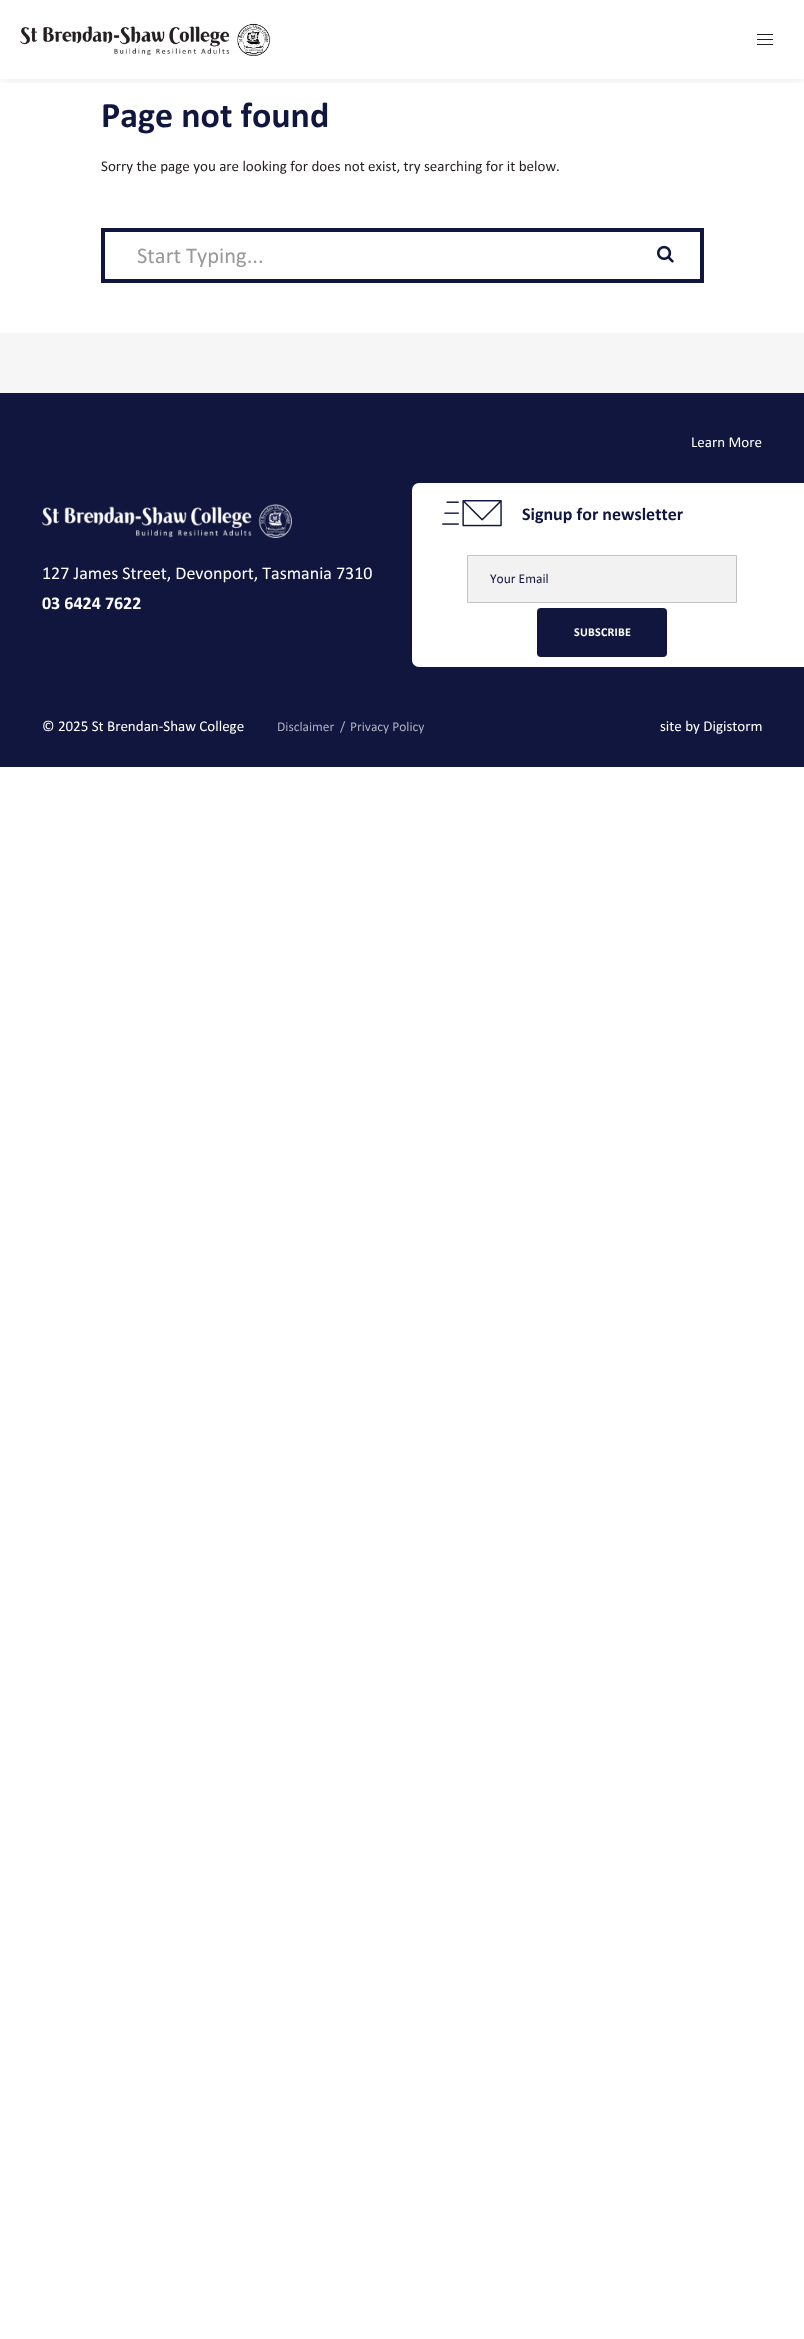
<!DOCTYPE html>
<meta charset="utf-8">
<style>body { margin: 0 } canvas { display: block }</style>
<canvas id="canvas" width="804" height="2339"></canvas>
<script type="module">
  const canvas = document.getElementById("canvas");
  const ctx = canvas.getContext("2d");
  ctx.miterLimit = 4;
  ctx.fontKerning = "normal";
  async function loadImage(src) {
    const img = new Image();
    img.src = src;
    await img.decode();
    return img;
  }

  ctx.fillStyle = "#ffffff";
  ctx.fillRect(0, 0, 804, 2339);
  ctx.fillStyle = "#f6f6f6";
  ctx.fillRect(0, 333, 804, 60);
  ctx.save();
  ctx.beginPath();
  ctx.rect(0, 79, 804, 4);
  ctx.clip();
  ctx.fillStyle = "rgba(0, 0, 0, 0.1)";
  ctx.filter = "blur(5px)";
  ctx.beginPath();
  ctx.rect(0, 0, 804, 79);
  ctx.fill();
  ctx.filter = "none";
  ctx.restore();
  ctx.drawImage(await loadImage("img1.png"), 20, 23, 250, 33);
  ctx.fillStyle = "#231e21";
  ctx.fillRect(757, 34, 16, 1);
  ctx.fillRect(757, 39, 16, 1);
  ctx.fillRect(757, 44, 16, 1);
  ctx.font = "bold 36px Calibri";
  ctx.fillStyle = "#11163e";
  ctx.fillText("Page not found", 101, 127);
  ctx.font = "15px Calibri";
  ctx.fillStyle = "#231e21";
  ctx.fillText("Sorry the page you are looking for does not exist, try searching for it below.", 101, 171);
  ctx.strokeStyle = "#11163e";
  ctx.lineWidth = 4;
  ctx.strokeRect(103, 230, 599, 51);
  ctx.font = "22.5px Calibri";
  ctx.fillStyle = "#999999";
  ctx.fillText("Start Typing...", 137, 263);
  ctx.drawImage(await loadImage("img2.png"), 657, 245, 17, 18);
  ctx.fillStyle = "#11163e";
  ctx.fillRect(0, 393, 804, 374);
  ctx.drawImage(await loadImage("img3.png"), 42, 504, 250, 34);
  ctx.font = "18px Calibri";
  ctx.fillStyle = "#ffffff";
  ctx.fillText("127 James Street, Devonport, Tasmania 7310", 42, 579);
  ctx.font = "bold 18px Calibri";
  ctx.fillText("03 6424 7622", 42, 609);
  ctx.font = "15px Calibri";
  ctx.fillText("Learn More", 691, 447);
  ctx.beginPath();
  ctx.roundRect(412, 483, 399, 184, 7);
  ctx.fill();
  ctx.drawImage(await loadImage("img4.png"), 442, 500, 60, 27);
  ctx.font = "bold 18px Calibri";
  ctx.fillStyle = "#11163e";
  ctx.fillText("Signup for newsletter", 522, 520);
  ctx.fillStyle = "#f2f2f2";
  ctx.beginPath();
  ctx.rect(467.5, 555.5, 269, 47);
  ctx.fill();
  ctx.strokeStyle = "#c2c2c2";
  ctx.lineWidth = 1;
  ctx.stroke();
  ctx.font = "13.5px Calibri";
  ctx.fillStyle = "#11163e";
  ctx.fillText("Your Email", 490, 583);
  ctx.beginPath();
  ctx.roundRect(537, 608, 130, 49, 4);
  ctx.fill();
  ctx.letterSpacing = "0.25px";
  ctx.font = "bold 12px Calibri";
  ctx.fillStyle = "#ffffff";
  ctx.fillText("SUBSCRIBE", 574, 636);
  ctx.letterSpacing = "0px";
  ctx.font = "15px Calibri";
  ctx.fillText("© 2025 St Brendan-Shaw College", 42, 731);
  ctx.font = "13.5px Calibri";
  ctx.fillStyle = "#acadbb";
  ctx.fillText("Disclaimer", 277, 731);
  ctx.fillText("/", 340, 731);
  ctx.fillText("Privacy Policy", 350, 731);
  ctx.font = "15px Calibri";
  ctx.fillStyle = "#ffffff";
  ctx.fillText("site by Digistorm", 660, 731);
</script>
